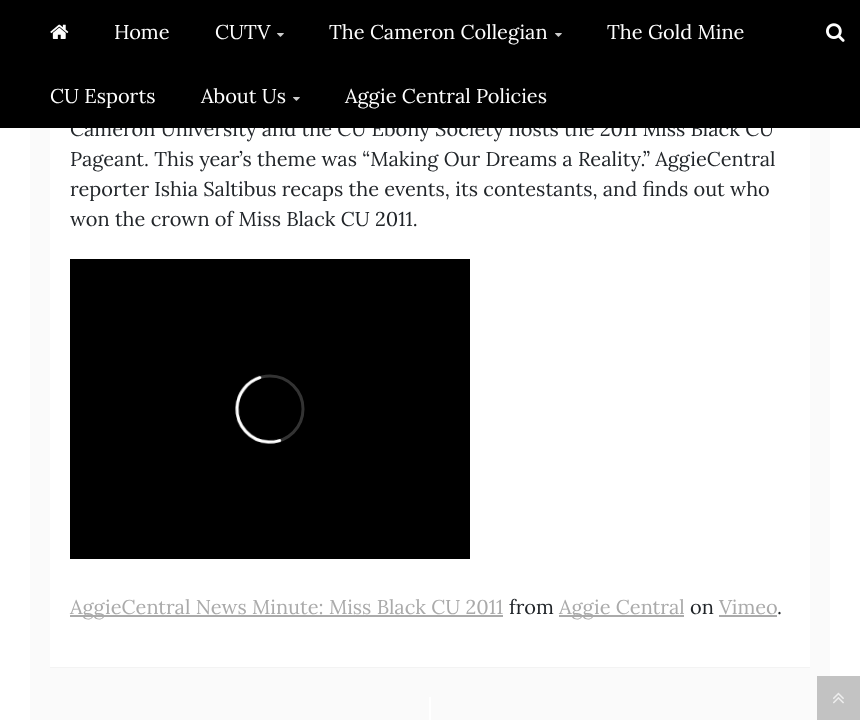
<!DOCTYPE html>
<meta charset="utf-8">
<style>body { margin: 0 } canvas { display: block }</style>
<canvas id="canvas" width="860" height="720"></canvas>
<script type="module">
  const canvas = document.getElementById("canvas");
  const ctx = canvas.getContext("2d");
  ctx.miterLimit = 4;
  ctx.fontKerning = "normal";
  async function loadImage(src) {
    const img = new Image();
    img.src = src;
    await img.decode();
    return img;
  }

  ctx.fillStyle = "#ffffff";
  ctx.fillRect(0, 0, 860, 720);
  ctx.fillStyle = "#fafafa";
  ctx.fillRect(30, 128, 800, 592);
  ctx.fillStyle = "#ffffff";
  ctx.fillRect(50, 128, 760, 539);
  ctx.font = "20px Lora";
  ctx.fillStyle = "#212529";
  ctx.fillText("Cameron University and the CU Ebony Society hosts the 2011 Miss Black CU", 70, 136);
  ctx.fillStyle = "#000000";
  ctx.fillRect(0, 0, 860, 128);
  ctx.drawImage(await loadImage("img1.png"), 50, 24, 19, 15);
  ctx.fillStyle = "#ffffff";
  ctx.fillText("Home", 114, 39);
  ctx.fillText("CUTV", 215, 39);
  ctx.drawImage(await loadImage("img2.png"), 277, 33, 7, 4);
  ctx.fillText("The Cameron Collegian", 329, 39);
  ctx.drawImage(await loadImage("img2.png"), 555, 33, 7, 4);
  ctx.fillText("The Gold Mine", 607, 39);
  ctx.fillText("CU Esports", 50, 103);
  ctx.fillText("About Us", 201, 103);
  ctx.drawImage(await loadImage("img2.png"), 293, 97, 7, 4);
  ctx.fillText("Aggie Central Policies", 345, 103);
  ctx.drawImage(await loadImage("img3.png"), 826, 23, 19, 19);
  ctx.fillStyle = "#f3f3f3";
  ctx.fillRect(50, 667, 760, 1);
  ctx.fillStyle = "#212529";
  ctx.fillText("Pageant. This year’s theme was “Making Our Dreams a Reality.” AggieCentral", 70, 166);
  ctx.fillText("reporter Ishia Saltibus recaps the events, its contestants, and finds out who", 70, 196);
  ctx.fillText("won the crown of Miss Black CU 2011.", 70, 226);
  ctx.drawImage(await loadImage("img4.png"), 70, 259, 400, 300);
  ctx.fillStyle = "#aaaaaa";
  ctx.fillRect(70, 615, 433, 2);
  ctx.fillText("AggieCentral News Minute: Miss Black CU 2011", 70, 614);
  ctx.fillStyle = "#212529";
  ctx.fillText("from", 509, 614);
  ctx.fillStyle = "#aaaaaa";
  ctx.fillRect(559, 615, 125, 2);
  ctx.fillText("Aggie Central", 559, 614);
  ctx.fillStyle = "#212529";
  ctx.fillText("on", 690, 614);
  ctx.fillStyle = "#aaaaaa";
  ctx.fillText("Vimeo", 719, 614);
  ctx.fillRect(719, 615, 58, 2);
  ctx.fillStyle = "#212529";
  ctx.fillText(".", 777, 614);
  ctx.fillStyle = "#ffffff";
  ctx.fillRect(429, 697, 2, 23);
  ctx.fillStyle = "rgba(170, 170, 170, 0.7)";
  ctx.fillRect(817, 676, 43, 44);
  ctx.drawImage(await loadImage("img5.png"), 833, 692, 11, 12);
</script>
